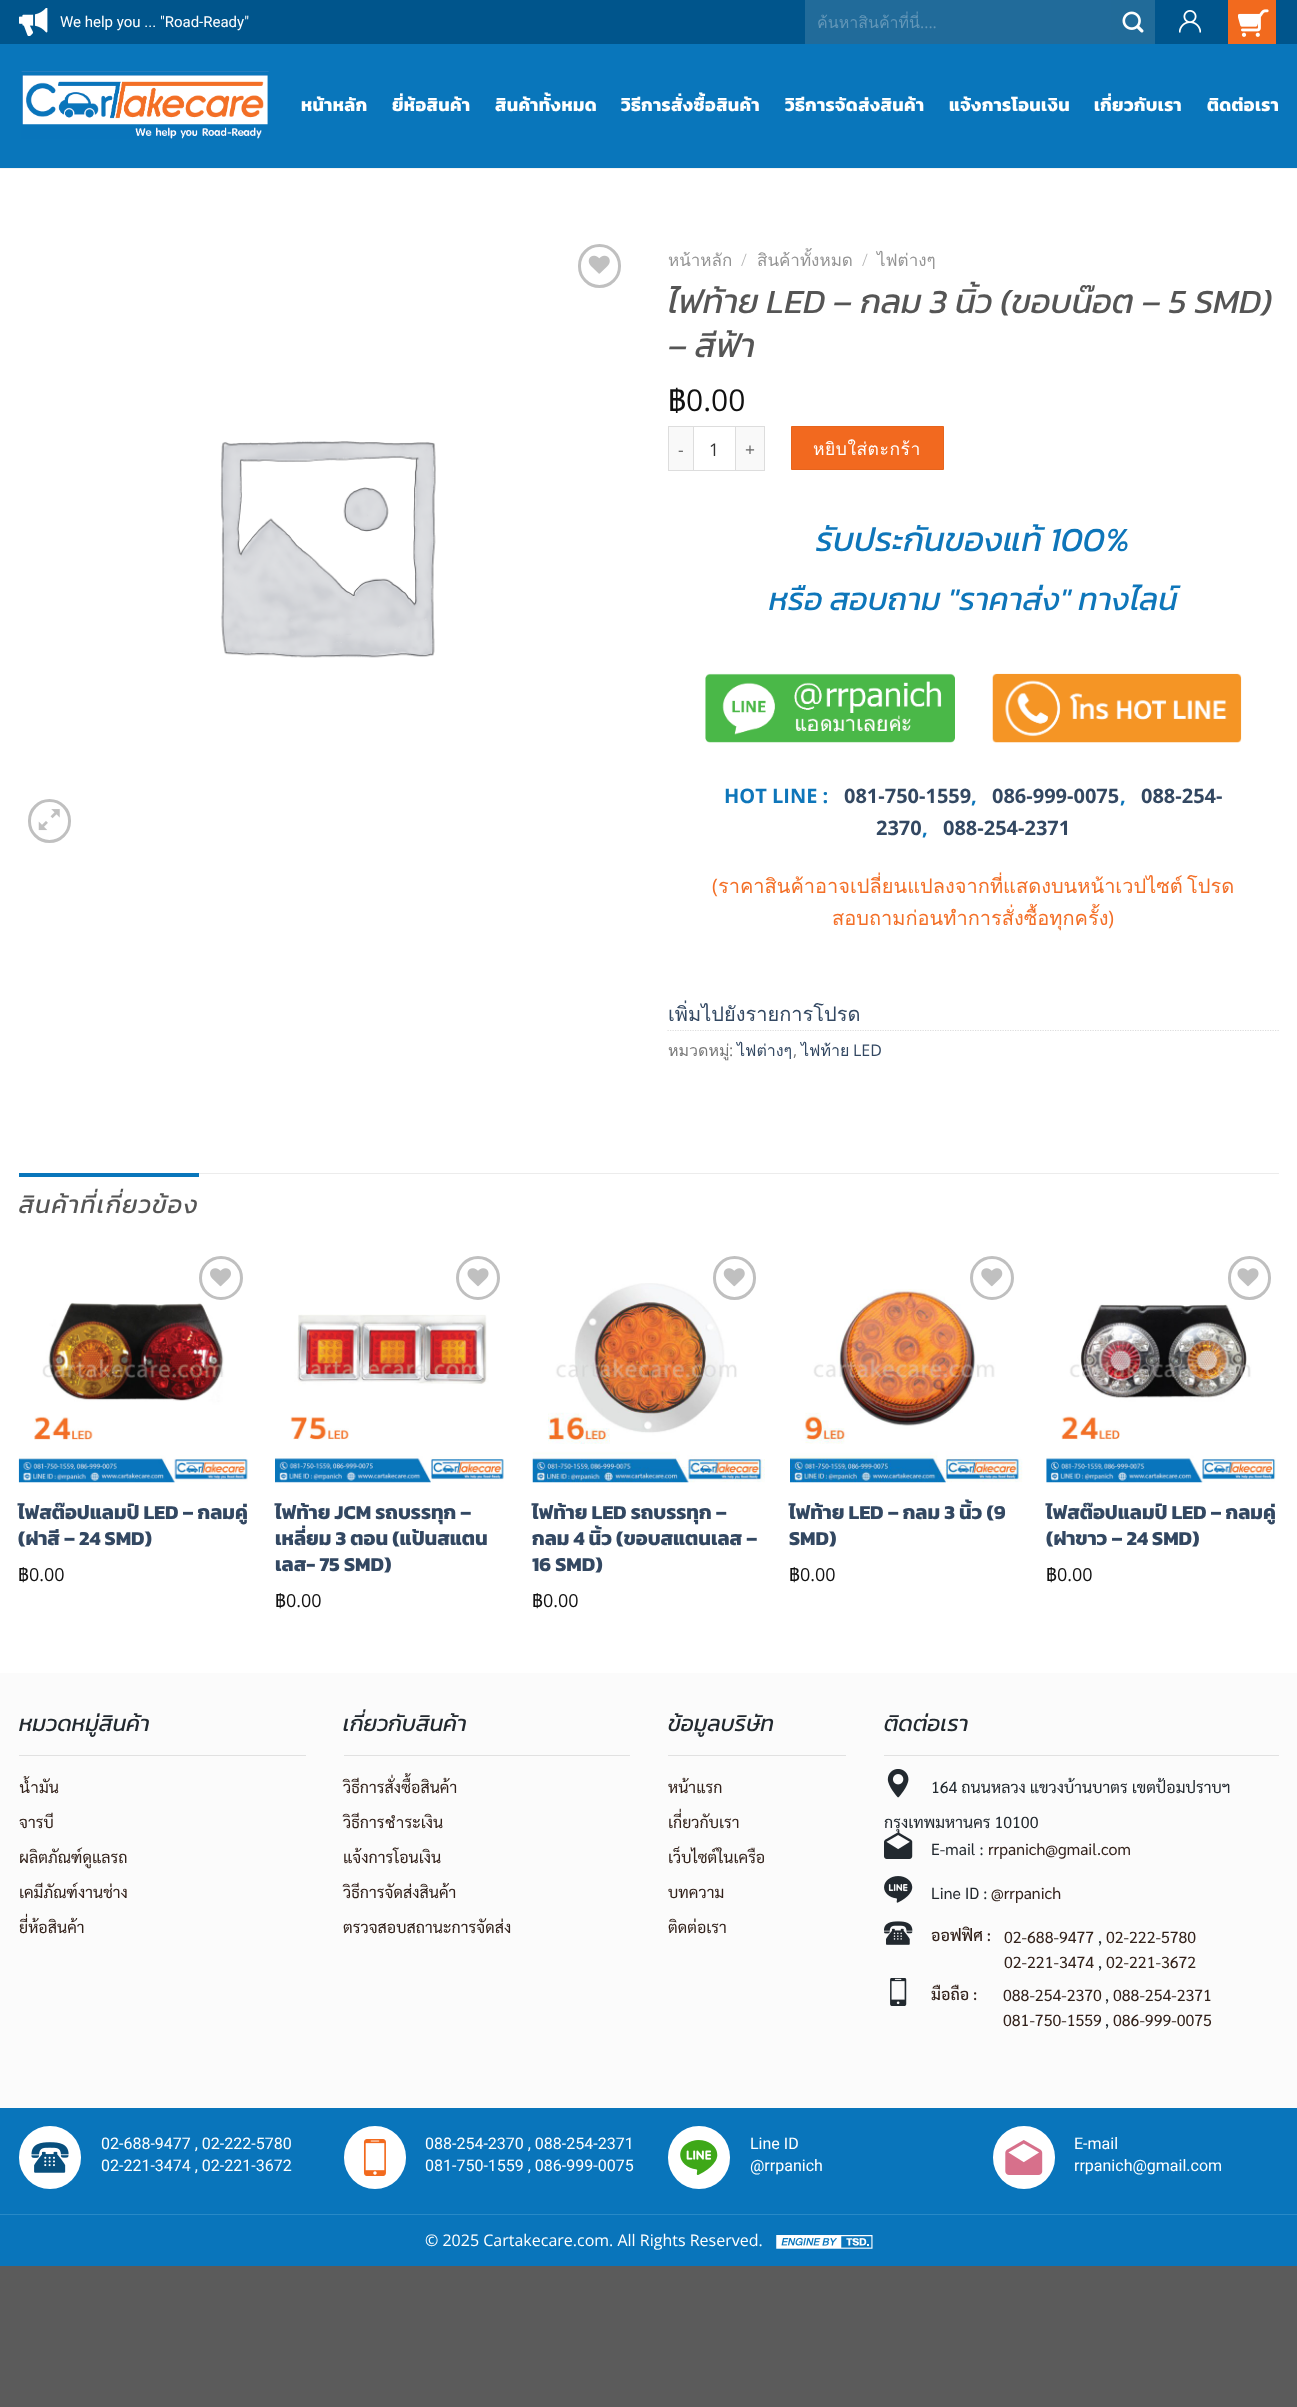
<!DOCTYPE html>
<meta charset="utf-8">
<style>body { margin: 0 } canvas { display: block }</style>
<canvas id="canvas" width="1297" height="2407"></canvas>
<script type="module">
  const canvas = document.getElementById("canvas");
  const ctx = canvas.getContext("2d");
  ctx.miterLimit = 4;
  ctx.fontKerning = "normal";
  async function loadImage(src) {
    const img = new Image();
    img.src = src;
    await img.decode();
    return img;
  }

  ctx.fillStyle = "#5b5b5b";
  ctx.fillRect(0, 0, 1297, 2407);
  ctx.fillStyle = "#ffffff";
  ctx.fillRect(0, 169, 1297, 1504);
  ctx.fillStyle = "#00558c";
  ctx.fillRect(0, 0, 1297, 44);
  ctx.drawImage(await loadImage("img1.png"), 19, 8, 29, 28);
  ctx.font = "15px Roboto";
  ctx.fillStyle = "#ffffff";
  ctx.fillText("We help you ... \"Road-Ready\"", 60, 27);
  ctx.fillStyle = "#216b9a";
  ctx.fillRect(805, 0, 306, 44);
  ctx.save();
  ctx.beginPath();
  ctx.rect(816, 10, 278, 26);
  ctx.clip();
  ctx.font = "16px Loma";
  ctx.fillStyle = "#6497b8";
  ctx.fillText("ค้นหาสินค้าที่นี่", 817, 28);
  ctx.restore();
  ctx.font = "16px Open Sans";
  ctx.fillStyle = "#6497b8";
  ctx.fillText("....", 920, 28);
  ctx.fillStyle = "#216b99";
  ctx.fillRect(1111, 0, 44, 44);
  ctx.drawImage(await loadImage("img2.png"), 1122, 11, 22, 22);
  ctx.drawImage(await loadImage("img3.png"), 1179, 10, 22, 23);
  ctx.fillStyle = "#f26a1e";
  ctx.fillRect(1228, 0, 48, 44);
  ctx.drawImage(await loadImage("img4.png"), 1238, 9, 31, 28);
  ctx.fillStyle = "#0976bb";
  ctx.fillRect(0, 44, 1297, 124);
  ctx.fillStyle = "#f4f4f4";
  ctx.fillRect(0, 168, 1297, 1);
  ctx.drawImage(await loadImage("img5.png"), 21, 71, 248, 68);
  ctx.letterSpacing = "0.4px";
  ctx.font = "bold 18px Kanit";
  ctx.fillStyle = "#ffffff";
  ctx.fillText("หน้าหลัก", 301, 111);
  ctx.fillText("ยี่ห้อสินค้า", 392, 111);
  ctx.fillText("สินค้าทั้งหมด", 495, 111);
  ctx.fillText("วิธีการสั่งซื้อสินค้า", 621, 111);
  ctx.fillText("วิธีการจัดส่งสินค้า", 785, 111);
  ctx.fillText("แจ้งการโอนเงิน", 949, 111);
  ctx.fillText("เกี่ยวกับเรา", 1094, 111);
  ctx.fillText("ติดต่อเรา", 1207, 111);
  ctx.beginPath();
  ctx.roundRect(579.5, 245.5, 40, 41, 20);
  ctx.strokeStyle = "#c0c0c0";
  ctx.lineWidth = 3;
  ctx.stroke();
  ctx.drawImage(await loadImage("img6.png"), 588, 255, 22, 19);
  ctx.drawImage(await loadImage("img7.png"), 220, 441, 216, 217);
  ctx.beginPath();
  ctx.roundRect(29.5, 800.5, 40, 41, 20);
  ctx.stroke();
  ctx.drawImage(await loadImage("img8.png"), 38, 809, 22, 22);
  ctx.letterSpacing = "0px";
  ctx.font = "17px Loma";
  ctx.fillStyle = "#949494";
  ctx.fillText("หน้าหลัก", 668, 266);
  ctx.font = "300 17px Open Sans";
  ctx.fillStyle = "#b2b2b2";
  ctx.fillText("/", 741, 266);
  ctx.font = "17px Loma";
  ctx.fillStyle = "#949494";
  ctx.fillText("สินค้าทั้งหมด", 757, 266);
  ctx.font = "300 17px Open Sans";
  ctx.fillStyle = "#b2b2b2";
  ctx.fillText("/", 862, 266);
  ctx.font = "17px Loma";
  ctx.fillStyle = "#949494";
  ctx.fillText("ไฟต่างๆ", 877, 266);
  ctx.font = "italic 34px Kanit";
  ctx.fillStyle = "#555555";
  ctx.fillText("ไฟท้าย LED – กลม 3 นิ้ว (ขอบน๊อต – 5 SMD)", 668, 313);
  ctx.fillText("– สีฟ้า", 668, 357);
  ctx.font = "30px Loma";
  ctx.fillStyle = "#111111";
  ctx.fillText("฿", 668, 411);
  ctx.font = "30px Open Sans";
  ctx.fillText("0.00", 686, 411);
  ctx.fillStyle = "#f9f9f9";
  ctx.fillRect(669, 427, 24, 43);
  ctx.fillStyle = "#dddddd";
  ctx.fillRect(668, 426, 25, 1);
  ctx.fillRect(668, 470, 25, 1);
  ctx.fillRect(668, 426, 1, 45);
  ctx.letterSpacing = "0.5px";
  ctx.font = "17.5px Open Sans";
  ctx.fillStyle = "#666666";
  ctx.fillText("-", 678, 456);
  ctx.strokeStyle = "#dddddd";
  ctx.lineWidth = 1;
  ctx.strokeRect(693.5, 426.5, 42, 44);
  ctx.letterSpacing = "0px";
  ctx.fillStyle = "#333333";
  ctx.fillText("1", 709, 456);
  ctx.fillStyle = "#f9f9f9";
  ctx.fillRect(736, 427, 28, 43);
  ctx.fillStyle = "#dddddd";
  ctx.fillRect(736, 426, 29, 1);
  ctx.fillRect(764, 426, 1, 45);
  ctx.fillRect(736, 470, 29, 1);
  ctx.letterSpacing = "0.5px";
  ctx.fillStyle = "#666666";
  ctx.fillText("+", 745, 456);
  ctx.fillStyle = "#f2691f";
  ctx.beginPath();
  ctx.rect(791.5, 426.5, 152, 43);
  ctx.fill();
  ctx.strokeStyle = "#e6641d";
  ctx.stroke();
  ctx.font = "17.5px Loma";
  ctx.fillStyle = "#ffffff";
  ctx.fillText("หยิบใส่ตะกร้า", 813, 455);
  ctx.letterSpacing = "0px";
  ctx.font = "italic 34px Kanit";
  ctx.fillStyle = "#0e76ba";
  ctx.fillText("รับประกันของแท้ 100%", 816, 551);
  ctx.font = "italic 32px Kanit";
  ctx.fillText("หรือ สอบถาม \"ราคาส่ง\" ทางไลน์", 769, 610);
  ctx.drawImage(await loadImage("img9.png"), 705, 673, 250, 70);
  ctx.drawImage(await loadImage("img10.png"), 992, 673, 250, 70);
  ctx.font = "bold 20px Open Sans";
  ctx.fillText("HOT LINE :", 724, 803);
  ctx.fillStyle = "#334862";
  ctx.fillText("081-750-1559", 844, 803);
  ctx.fillStyle = "#0e76ba";
  ctx.fillText(",", 971, 803);
  ctx.fillStyle = "#334862";
  ctx.fillText("086-999-0075", 992, 803);
  ctx.fillStyle = "#0e76ba";
  ctx.fillText(",", 1120, 803);
  ctx.fillStyle = "#334862";
  ctx.fillText("088-254-", 1141, 803);
  ctx.fillText("2370", 876, 835);
  ctx.fillStyle = "#0e76ba";
  ctx.fillText(",", 922, 835);
  ctx.fillStyle = "#334862";
  ctx.fillText("088-254-2371", 943, 835);
  ctx.font = "20px Open Sans";
  ctx.fillStyle = "#f36f27";
  ctx.fillText("(", 712, 893);
  ctx.font = "20px Loma";
  ctx.fillText("ราคาสินค้าอาจเปลี่ยนแปลงจากที่แสดงบนหน้าเวปไซต์", 718, 893);
  ctx.fillText("โปรด", 1187, 893);
  ctx.fillText("สอบถามก่อนทำการสั่งซื้อทุกครั้ง", 832, 925);
  ctx.font = "20px Open Sans";
  ctx.fillText(")", 1108, 925);
  ctx.font = "20px Loma";
  ctx.fillStyle = "#334862";
  ctx.fillText("เพิ่มไปยังรายการโปรด", 668, 1021);
  ctx.beginPath();
  ctx.moveTo(667.5, 1030.5);
  ctx.lineTo(1279, 1030.5);
  ctx.strokeStyle = "#dddddd";
  ctx.lineWidth = 1.2;
  ctx.setLineDash([1.25, 1.25]);
  ctx.stroke();
  ctx.font = "16px Loma";
  ctx.fillStyle = "#777777";
  ctx.fillText("หมวดหมู่", 668, 1056);
  ctx.font = "16px Open Sans";
  ctx.fillText(":", 729, 1056);
  ctx.font = "16px Loma";
  ctx.fillStyle = "#334862";
  ctx.fillText("ไฟต่างๆ", 737, 1056);
  ctx.font = "16px Open Sans";
  ctx.fillStyle = "#777777";
  ctx.fillText(",", 793, 1056);
  ctx.font = "16px Loma";
  ctx.fillStyle = "#334862";
  ctx.fillText("ไฟท้าย", 801, 1056);
  ctx.font = "16px Open Sans";
  ctx.fillText("LED", 853, 1056);
  ctx.fillStyle = "#ececec";
  ctx.fillRect(199, 1173, 1080, 1);
  ctx.fillStyle = "#0976bb";
  ctx.fillRect(19, 1173, 180, 4);
  ctx.letterSpacing = "1.25px";
  ctx.font = "italic 25px Kanit";
  ctx.fillStyle = "#555555";
  ctx.fillText("สินค้าที่เกี่ยวข้อง", 19, 1213);
  ctx.beginPath();
  ctx.arc(221, 1278, 20.5, 0, Math.PI * 2);
  ctx.strokeStyle = "#c0c0c0";
  ctx.lineWidth = 3;
  ctx.setLineDash([]);
  ctx.stroke();
  ctx.drawImage(await loadImage("img11.png"), 210, 1268, 21, 19);
  ctx.drawImage(await loadImage("img12.png"), 18, 1302, 230, 181);
  ctx.letterSpacing = "0px";
  ctx.font = "bold 20px Kanit";
  ctx.fillStyle = "#334862";
  ctx.fillText("ไฟสต๊อปแลมป์ LED – กลมคู่", 18, 1519);
  ctx.fillText("(ฝาสี – 24 SMD)", 18, 1545);
  ctx.font = "18px Loma";
  ctx.fillStyle = "#111111";
  ctx.fillText("฿", 18, 1581);
  ctx.font = "18px Open Sans";
  ctx.fillText("0.00", 29, 1581);
  ctx.beginPath();
  ctx.arc(478, 1278, 20.5, 0, Math.PI * 2);
  ctx.stroke();
  ctx.drawImage(await loadImage("img13.png"), 467, 1268, 22, 19);
  ctx.drawImage(await loadImage("img14.png"), 275, 1314, 229, 169);
  ctx.font = "bold 20px Kanit";
  ctx.fillStyle = "#334862";
  ctx.fillText("ไฟท้าย JCM รถบรรทุก –", 275, 1519);
  ctx.fillText("เหลี่ยม 3 ตอน (แป้นสแตน", 275, 1545);
  ctx.fillText("เลส- 75 SMD)", 275, 1571);
  ctx.font = "18px Loma";
  ctx.fillStyle = "#111111";
  ctx.fillText("฿", 275, 1607);
  ctx.font = "18px Open Sans";
  ctx.fillText("0.00", 286, 1607);
  ctx.drawImage(await loadImage("img16.png"), 532, 1283, 233, 200);
  ctx.beginPath();
  ctx.roundRect(714.5, 1257.5, 40, 41, 20);
  ctx.stroke();
  ctx.drawImage(await loadImage("img15.png"), 723, 1268, 22, 19);
  ctx.font = "bold 20px Kanit";
  ctx.fillStyle = "#334862";
  ctx.fillText("ไฟท้าย LED รถบรรทุก –", 532, 1519);
  ctx.fillText("กลม 4 นิ้ว (ขอบสแตนเลส –", 532, 1545);
  ctx.fillText("16 SMD)", 532, 1571);
  ctx.font = "18px Loma";
  ctx.fillStyle = "#111111";
  ctx.fillText("฿", 532, 1607);
  ctx.font = "18px Open Sans";
  ctx.fillText("0.00", 543, 1607);
  ctx.drawImage(await loadImage("img18.png"), 790, 1289, 233, 194);
  ctx.beginPath();
  ctx.arc(992, 1278, 20.5, 0, Math.PI * 2);
  ctx.stroke();
  ctx.drawImage(await loadImage("img17.png"), 981, 1268, 22, 19);
  ctx.font = "bold 20px Kanit";
  ctx.fillStyle = "#334862";
  ctx.fillText("ไฟท้าย LED – กลม 3 นิ้ว (9", 789, 1519);
  ctx.fillText("SMD)", 789, 1545);
  ctx.font = "18px Loma";
  ctx.fillStyle = "#111111";
  ctx.fillText("฿", 789, 1581);
  ctx.font = "18px Open Sans";
  ctx.fillText("0.00", 800, 1581);
  ctx.beginPath();
  ctx.roundRect(1229.5, 1257.5, 40, 41, 20);
  ctx.stroke();
  ctx.drawImage(await loadImage("img13.png"), 1237, 1268, 22, 19);
  ctx.drawImage(await loadImage("img19.png"), 1046, 1304, 230, 179);
  ctx.font = "bold 20px Kanit";
  ctx.fillStyle = "#334862";
  ctx.fillText("ไฟสต๊อปแลมป์ LED – กลมคู่", 1046, 1519);
  ctx.fillText("(ฝาขาว – 24 SMD)", 1046, 1545);
  ctx.font = "18px Loma";
  ctx.fillStyle = "#111111";
  ctx.fillText("฿", 1046, 1581);
  ctx.font = "18px Open Sans";
  ctx.fillText("0.00", 1057, 1581);
  ctx.fillStyle = "#0975bb";
  ctx.fillRect(0, 2108, 1297, 158);
  ctx.fillStyle = "#fbfbfb";
  ctx.fillRect(0, 1673, 1297, 435);
  ctx.fillStyle = "#e1e1e1";
  ctx.fillRect(19, 1755, 287, 1);
  ctx.font = "italic 22.5px Kanit";
  ctx.fillStyle = "#22292f";
  ctx.fillText("หมวดหมู่สินค้า", 19, 1731);
  ctx.font = "16px Sarabun";
  ctx.fillStyle = "#32211a";
  ctx.fillText("น้ำมัน", 19, 1793);
  ctx.fillText("จารบี", 19, 1828);
  ctx.fillText("ผลิตภัณฑ์ดูแลรถ", 19, 1863);
  ctx.fillText("เคมีภัณฑ์งานช่าง", 19, 1898);
  ctx.fillText("ยี่ห้อสินค้า", 19, 1933);
  ctx.fillStyle = "#e1e1e1";
  ctx.fillRect(344, 1755, 286, 1);
  ctx.font = "italic 22.5px Kanit";
  ctx.fillStyle = "#22292f";
  ctx.fillText("เกี่ยวกับสินค้า", 343, 1731);
  ctx.font = "16px Sarabun";
  ctx.fillStyle = "#32211a";
  ctx.fillText("วิธีการสั่งซื้อสินค้า", 343, 1793);
  ctx.fillText("วิธีการชำระเงิน", 343, 1828);
  ctx.fillText("แจ้งการโอนเงิน", 343, 1863);
  ctx.fillText("วิธีการจัดส่งสินค้า", 343, 1898);
  ctx.fillText("ตรวจสอบสถานะการจัดส่ง", 343, 1933);
  ctx.fillStyle = "#e1e1e1";
  ctx.fillRect(668, 1755, 178, 1);
  ctx.font = "italic 22.5px Kanit";
  ctx.fillStyle = "#22292f";
  ctx.fillText("ข้อมูลบริษัท", 668, 1731);
  ctx.font = "16px Sarabun";
  ctx.fillStyle = "#32211a";
  ctx.fillText("หน้าแรก", 668, 1793);
  ctx.fillText("เกี่ยวกับเรา", 668, 1828);
  ctx.fillText("เว็บไซต์ในเครือ", 668, 1863);
  ctx.fillText("บทความ", 668, 1898);
  ctx.fillText("ติดต่อเรา", 668, 1933);
  ctx.fillStyle = "#e1e1e1";
  ctx.fillRect(884, 1755, 395, 1);
  ctx.font = "italic 22.5px Kanit";
  ctx.fillStyle = "#22292f";
  ctx.fillText("ติดต่อเรา", 884, 1731);
  ctx.drawImage(await loadImage("img20.png"), 887, 1769, 22, 29);
  ctx.font = "16px Sarabun";
  ctx.fillText("164 ถนนหลวง แขวงบ้านบาตร เขตป้อมปราบฯ", 931, 1793);
  ctx.drawImage(await loadImage("img21.png"), 884, 1832, 29, 27);
  ctx.fillText("กรุงเทพมหานคร 10100", 884, 1828);
  ctx.fillText("E-mail :", 931, 1855);
  ctx.fillStyle = "#32211a";
  ctx.fillText("rrpanich@gmail.com", 988, 1855);
  ctx.drawImage(await loadImage("img22.png"), 884, 1876, 29, 27);
  ctx.fillStyle = "#22292f";
  ctx.fillText("Line ID :", 931, 1899);
  ctx.fillStyle = "#32211a";
  ctx.fillText("@rrpanich", 991, 1899);
  ctx.drawImage(await loadImage("img23.png"), 884, 1921, 29, 24);
  ctx.font = "500 16px Sarabun";
  ctx.fillText("ออฟฟิศ :", 931, 1941);
  ctx.font = "16px Sarabun";
  ctx.fillText("02-688-9477", 1004, 1943);
  ctx.fillStyle = "#22292f";
  ctx.fillText(",", 1098, 1943);
  ctx.fillStyle = "#32211a";
  ctx.fillText("02-222-5780", 1106, 1943);
  ctx.fillText("02-221-3474", 1004, 1968);
  ctx.fillStyle = "#22292f";
  ctx.fillText(",", 1098, 1968);
  ctx.fillStyle = "#32211a";
  ctx.fillText("02-221-3672", 1106, 1968);
  ctx.drawImage(await loadImage("img24.png"), 890, 1978, 17, 28);
  ctx.font = "500 16px Sarabun";
  ctx.fillText("มือถือ :", 931, 2000);
  ctx.font = "16px Sarabun";
  ctx.fillText("088-254-2370", 1003, 2001);
  ctx.fillStyle = "#22292f";
  ctx.fillText(",", 1105, 2001);
  ctx.fillStyle = "#32211a";
  ctx.fillText("088-254-2371", 1113, 2001);
  ctx.fillText("081-750-1559", 1003, 2026);
  ctx.fillStyle = "#22292f";
  ctx.fillText(",", 1105, 2026);
  ctx.fillStyle = "#32211a";
  ctx.fillText("086-999-0075", 1113, 2026);
  ctx.fillStyle = "#ffffff";
  ctx.beginPath();
  ctx.roundRect(19, 2126, 62, 63, 31);
  ctx.fill();
  ctx.drawImage(await loadImage("img25.png"), 31, 2142, 38, 31);
  ctx.font = "16px Roboto";
  ctx.fillText("02-688-9477 , 02-222-5780", 101, 2149);
  ctx.fillText("02-221-3474 , 02-221-3672", 101, 2171);
  ctx.beginPath();
  ctx.roundRect(344, 2126, 62, 63, 31);
  ctx.fill();
  ctx.drawImage(await loadImage("img26.png"), 363, 2139, 23, 37);
  ctx.fillText("088-254-2370 , 088-254-2371", 425, 2149);
  ctx.fillText("081-750-1559 , 086-999-0075", 425, 2171);
  ctx.beginPath();
  ctx.roundRect(668, 2126, 62, 63, 31);
  ctx.fill();
  ctx.drawImage(await loadImage("img27.png"), 680, 2140, 38, 35);
  ctx.fillText("Line ID", 750, 2149);
  ctx.fillText("@rrpanich", 750, 2171);
  ctx.beginPath();
  ctx.roundRect(993, 2126, 62, 63, 31);
  ctx.fill();
  ctx.drawImage(await loadImage("img28.png"), 1005, 2140, 38, 35);
  ctx.fillText("E-mail", 1074, 2149);
  ctx.fillText("rrpanich@gmail.com", 1074, 2171);
  ctx.fillStyle = "#2989c6";
  ctx.fillRect(0, 2214, 1297, 1);
  ctx.font = "16px Open Sans";
  ctx.fillStyle = "#ffffff";
  ctx.fillText("© 2025 Cartakecare.com. All Rights Reserved.", 425, 2246);
  ctx.drawImage(await loadImage("img29.png"), 776, 2235, 97, 14);
</script>
